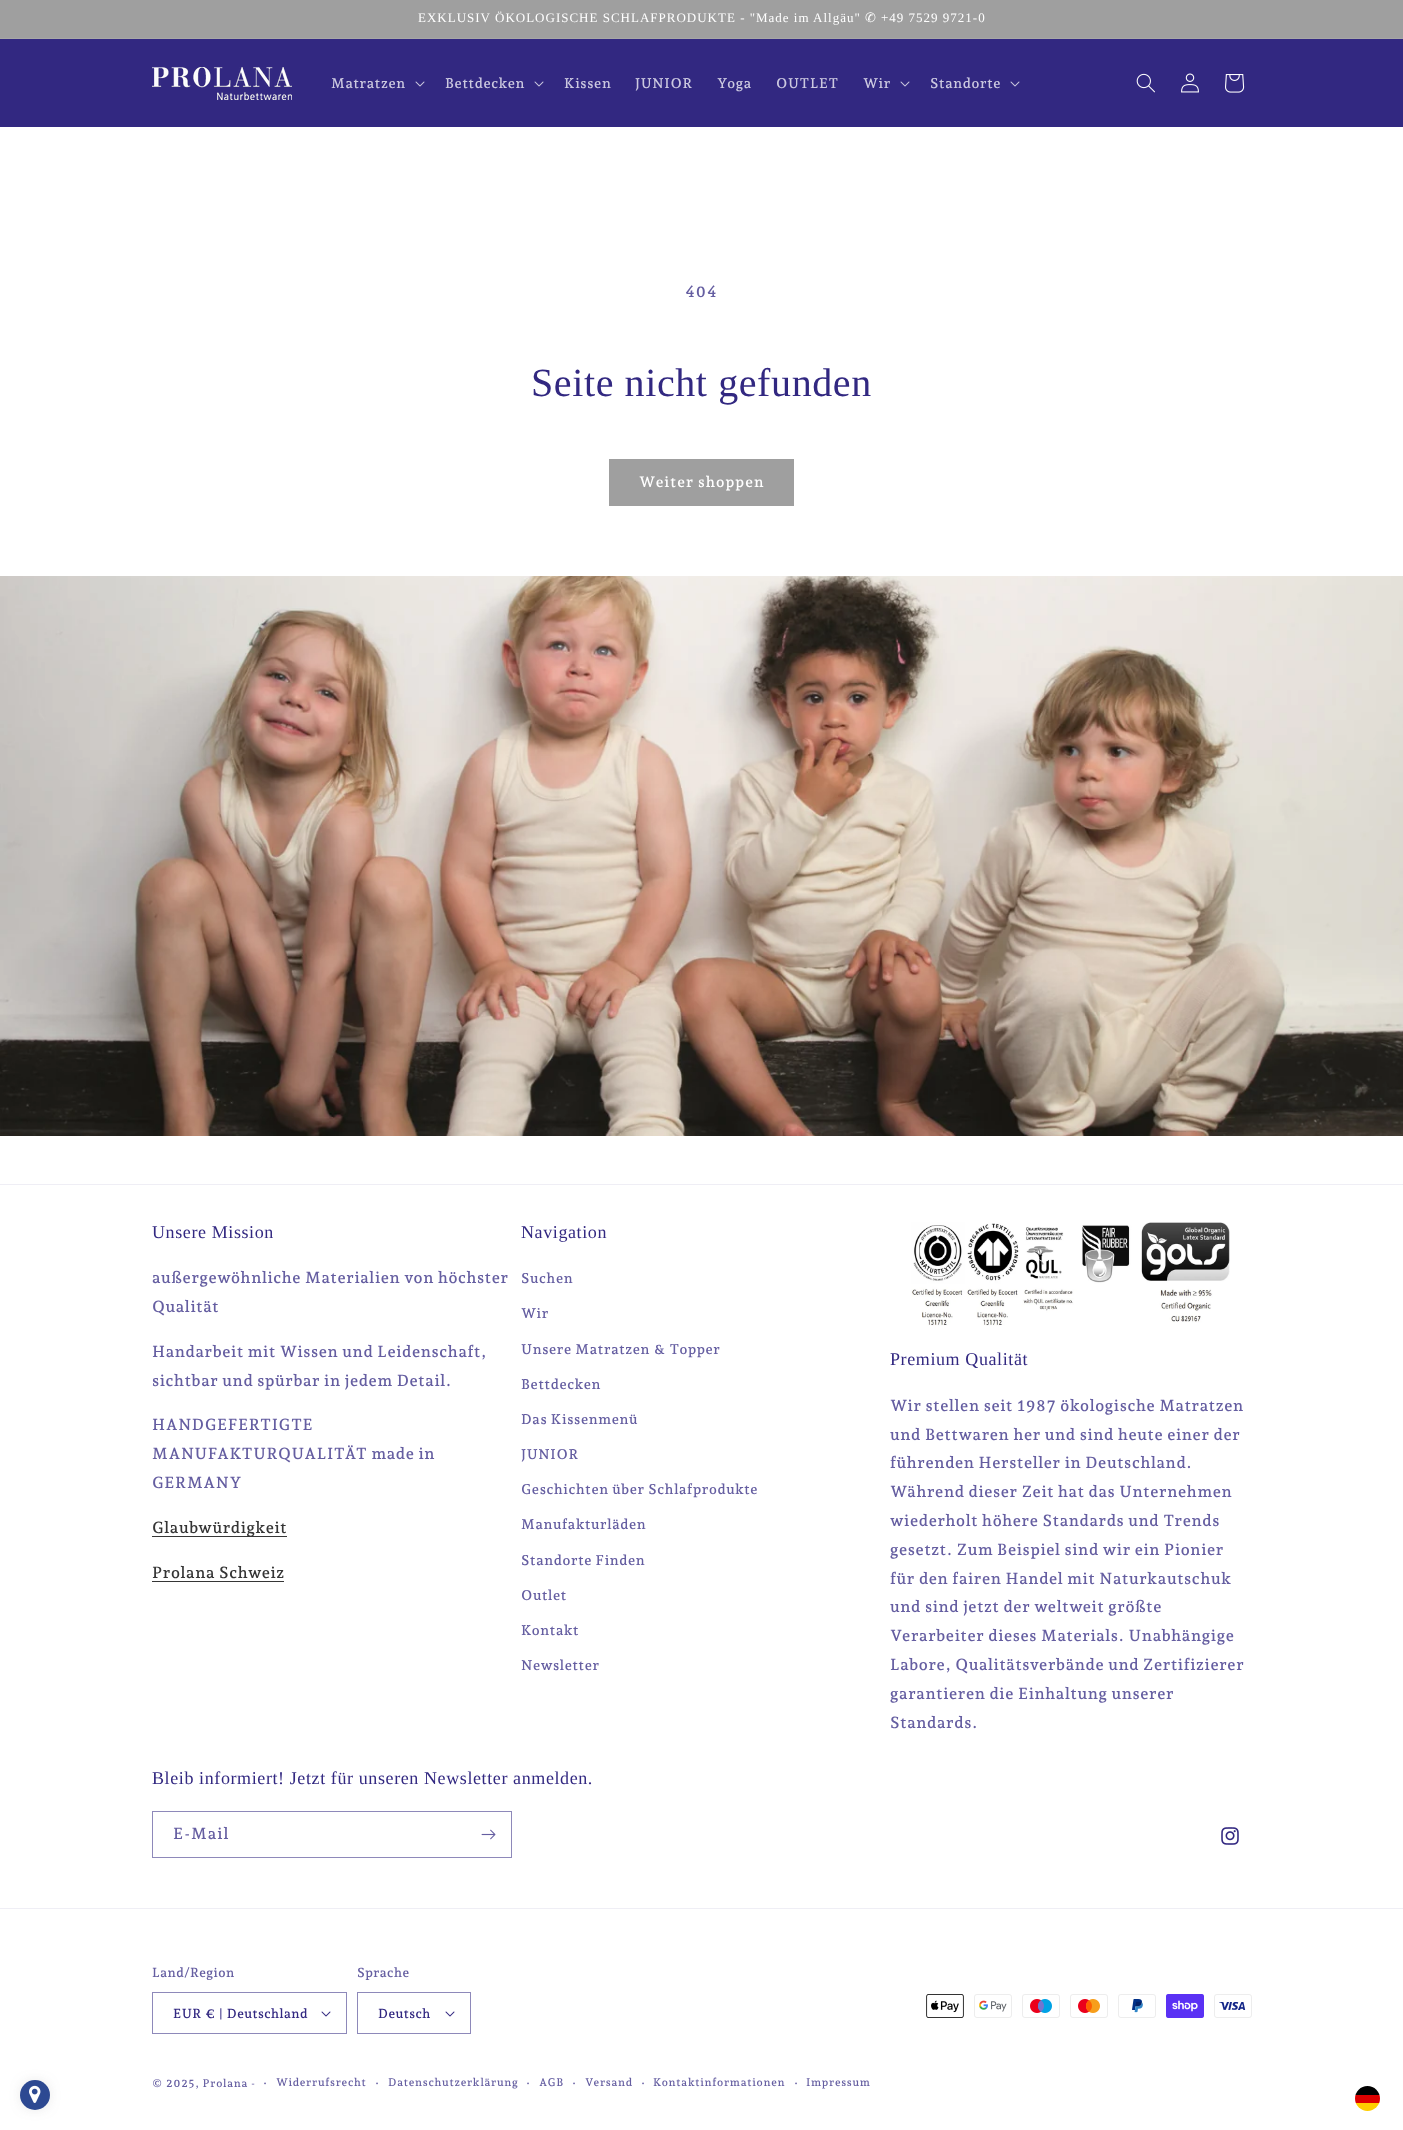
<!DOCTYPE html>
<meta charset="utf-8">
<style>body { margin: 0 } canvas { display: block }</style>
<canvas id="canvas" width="1403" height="2130"></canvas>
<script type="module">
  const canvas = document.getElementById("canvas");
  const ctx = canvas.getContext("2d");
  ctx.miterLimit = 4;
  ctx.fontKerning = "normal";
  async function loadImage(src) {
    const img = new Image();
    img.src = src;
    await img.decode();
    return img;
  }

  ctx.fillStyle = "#ffffff";
  ctx.fillRect(0, 0, 1403, 2130);
  ctx.fillStyle = "#9f9f9f";
  ctx.fillRect(0, 0, 1403, 38);
  ctx.fillStyle = "#a7a7a7";
  ctx.fillRect(0, 38, 1403, 1);
  ctx.letterSpacing = "1px";
  ctx.font = "13px Liberation Serif";
  ctx.fillStyle = "#ffffff";
  ctx.fillText("EXKLUSIV ÖKOLOGISCHE SCHLAFPRODUKTE - \"Made im Allgäu\"", 418, 22);
  ctx.font = "13px DejaVu Sans";
  ctx.fillText("✆", 865, 22);
  ctx.font = "13px Liberation Serif";
  ctx.fillText("+49 7529 9721-0", 881, 22);
  ctx.fillStyle = "#322881";
  ctx.fillRect(0, 39, 1403, 88);
  ctx.drawImage(await loadImage("img1.png"), 152, 67, 140, 33);
  ctx.letterSpacing = "0.6px";
  ctx.font = "600 14px Andada Pro";
  ctx.fillStyle = "#ccc9e0";
  ctx.fillText("Matratzen", 331, 88);
  ctx.drawImage(await loadImage("img2.png"), 415, 81, 10, 6);
  ctx.fillText("Bettdecken", 445, 88);
  ctx.drawImage(await loadImage("img2.png"), 534, 81, 10, 6);
  ctx.fillText("Kissen", 564, 88);
  ctx.fillText("JUNIOR", 635, 88);
  ctx.fillText("Yoga", 717, 88);
  ctx.fillText("OUTLET", 776, 88);
  ctx.fillText("Wir", 863, 88);
  ctx.drawImage(await loadImage("img2.png"), 900, 81, 10, 6);
  ctx.fillText("Standorte", 930, 88);
  ctx.drawImage(await loadImage("img2.png"), 1010, 81, 10, 6);
  ctx.drawImage(await loadImage("img3.png"), 1136, 73, 19, 20);
  ctx.drawImage(await loadImage("img4.png"), 1181, 73, 18, 20);
  ctx.drawImage(await loadImage("img5.png"), 1225, 74, 20, 19);
  ctx.font = "600 16px Andada Pro";
  ctx.fillStyle = "#655ea1";
  ctx.fillText("404", 685, 297);
  ctx.font = "40px Liberation Serif";
  ctx.fillStyle = "#322881";
  ctx.fillText("Seite nicht gefunden", 531, 396);
  ctx.fillStyle = "#9f9f9f";
  ctx.fillRect(609, 459, 185, 47);
  ctx.letterSpacing = "1px";
  ctx.font = "600 15px Andada Pro";
  ctx.fillStyle = "#ffffff";
  ctx.fillText("Weiter shoppen", 639, 487);
  ctx.drawImage(await loadImage("img6.png"), 0, 576, 1403, 560);
  ctx.fillStyle = "#5a5a5a";
  ctx.filter = "blur(9px)";
  ctx.beginPath();
  ctx.roundRect(29, 2089, 12, 12, 6);
  ctx.fill();
  ctx.filter = "none";
  ctx.fillStyle = "#2d4992";
  ctx.beginPath();
  ctx.arc(35, 2095, 15, 0, Math.PI * 2);
  ctx.fill();
  ctx.drawImage(await loadImage("img7.png"), 29, 2085, 12, 18);
  ctx.fillStyle = "#efeef5";
  ctx.fillRect(0, 1184, 1403, 1);
  ctx.letterSpacing = "0.6px";
  ctx.font = "18px Liberation Serif";
  ctx.fillStyle = "#322881";
  ctx.fillText("Unsere Mission", 152, 1238);
  ctx.font = "600 16px Andada Pro";
  ctx.fillStyle = "#655ea1";
  ctx.fillText("außergewöhnliche Materialien von höchster", 152, 1283);
  ctx.fillText("Qualität", 152, 1312);
  ctx.fillText("Handarbeit mit Wissen und Leidenschaft,", 152, 1357);
  ctx.fillText("sichtbar und spürbar in jedem Detail.", 152, 1386);
  ctx.fillText("HANDGEFERTIGTE", 152, 1430);
  ctx.fillText("MANUFAKTURQUALITÄT made in", 152, 1459);
  ctx.fillText("GERMANY", 152, 1488);
  ctx.fillStyle = "#363636";
  ctx.fillRect(152, 1536, 135, 1);
  ctx.fillStyle = "#353535";
  ctx.fillText("Glaubwürdigkeit", 152, 1533);
  ctx.fillText("Prolana Schweiz", 152, 1578);
  ctx.fillStyle = "#363636";
  ctx.fillRect(152, 1581, 132, 1);
  ctx.font = "18px Liberation Serif";
  ctx.fillStyle = "#322881";
  ctx.fillText("Navigation", 521, 1238);
  ctx.font = "600 14px Andada Pro";
  ctx.fillStyle = "#655ea1";
  ctx.fillText("Suchen", 521, 1283);
  ctx.fillText("Wir", 521, 1318);
  ctx.fillText("Unsere Matratzen & Topper", 521, 1354);
  ctx.fillText("Bettdecken", 521, 1389);
  ctx.fillText("Das Kissenmenü", 521, 1424);
  ctx.fillText("JUNIOR", 521, 1459);
  ctx.fillText("Geschichten über Schlafprodukte", 521, 1494);
  ctx.fillText("Manufakturläden", 521, 1529);
  ctx.fillText("Standorte Finden", 521, 1565);
  ctx.fillText("Outlet", 521, 1600);
  ctx.fillText("Kontakt", 521, 1635);
  ctx.fillText("Newsletter", 521, 1670);
  ctx.drawImage(await loadImage("img8.png"), 911, 1222, 319, 104);
  ctx.font = "18px Liberation Serif";
  ctx.fillStyle = "#322881";
  ctx.fillText("Premium Qualität", 890, 1365);
  ctx.font = "600 16px Andada Pro";
  ctx.fillStyle = "#655ea1";
  ctx.fillText("Wir stellen seit 1987 ökologische Matratzen", 890, 1411);
  ctx.fillText("und Bettwaren her und sind heute einer der", 890, 1440);
  ctx.fillText("führenden Hersteller in Deutschland.", 890, 1468);
  ctx.fillText("Während dieser Zeit hat das Unternehmen", 890, 1497);
  ctx.fillText("wiederholt höhere Standards und Trends", 890, 1526);
  ctx.fillText("gesetzt. Zum Beispiel sind wir ein Pionier", 890, 1555);
  ctx.fillText("für den fairen Handel mit Naturkautschuk", 890, 1584);
  ctx.fillText("und sind jetzt der weltweit größte", 890, 1612);
  ctx.fillText("Verarbeiter dieses Materials. Unabhängige", 890, 1641);
  ctx.fillText("Labore, Qualitätsverbände und Zertifizierer", 890, 1670);
  ctx.fillText("garantieren die Einhaltung unserer", 890, 1699);
  ctx.fillText("Standards.", 890, 1728);
  ctx.font = "18px Liberation Serif";
  ctx.fillStyle = "#322881";
  ctx.fillText("Bleib informiert! Jetzt für unseren Newsletter anmelden.", 152, 1784);
  ctx.strokeStyle = "#8e89ba";
  ctx.strokeRect(152.5, 1811.5, 359, 46);
  ctx.letterSpacing = "1px";
  ctx.font = "600 16px Andada Pro";
  ctx.fillStyle = "#655ea1";
  ctx.fillText("E-Mail", 173, 1839);
  ctx.drawImage(await loadImage("img9.png"), 481, 1829, 15, 11);
  ctx.drawImage(await loadImage("img10.png"), 1221, 1827, 18, 18);
  ctx.fillStyle = "#efeef5";
  ctx.fillRect(0, 1908, 1403, 1);
  ctx.letterSpacing = "0.4px";
  ctx.font = "600 13px Andada Pro";
  ctx.fillStyle = "#655ea1";
  ctx.fillText("Land/Region", 152, 1977);
  ctx.drawImage(await loadImage("img11.png"), 321, 2011, 10, 6);
  ctx.strokeRect(152.5, 1992.5, 194, 41);
  ctx.fillStyle = "#322881";
  ctx.fillText("EUR € | Deutschland", 173, 2018);
  ctx.fillStyle = "#655ea1";
  ctx.fillText("Sprache", 357, 1977);
  ctx.drawImage(await loadImage("img11.png"), 445, 2011, 10, 6);
  ctx.strokeRect(357.5, 1992.5, 113, 41);
  ctx.fillStyle = "#322881";
  ctx.fillText("Deutsch", 378, 2018);
  ctx.drawImage(await loadImage("img12.png"), 926, 1994, 38, 24);
  ctx.drawImage(await loadImage("img13.png"), 974, 1994, 38, 24);
  ctx.drawImage(await loadImage("img14.png"), 1022, 1994, 38, 24);
  ctx.drawImage(await loadImage("img15.png"), 1070, 1994, 38, 24);
  ctx.drawImage(await loadImage("img16.png"), 1118, 1994, 38, 24);
  ctx.drawImage(await loadImage("img17.png"), 1166, 1994, 38, 24);
  ctx.drawImage(await loadImage("img18.png"), 1214, 1994, 38, 24);
  ctx.letterSpacing = "0.7px";
  ctx.font = "600 11px Andada Pro";
  ctx.fillStyle = "#655ea1";
  ctx.fillText("© 2025, Prolana -", 152, 2087);
  ctx.font = "600 12px Andada Pro";
  ctx.fillText("·", 263, 2087);
  ctx.font = "600 11px Andada Pro";
  ctx.fillText("Widerrufsrecht", 276, 2086);
  ctx.font = "600 12px Andada Pro";
  ctx.fillText("·", 375, 2087);
  ctx.font = "600 11px Andada Pro";
  ctx.fillText("Datenschutzerklärung", 388, 2086);
  ctx.font = "600 12px Andada Pro";
  ctx.fillText("·", 526, 2087);
  ctx.font = "600 11px Andada Pro";
  ctx.fillText("AGB", 539, 2086);
  ctx.font = "600 12px Andada Pro";
  ctx.fillText("·", 572, 2087);
  ctx.font = "600 11px Andada Pro";
  ctx.fillText("Versand", 585, 2086);
  ctx.font = "600 12px Andada Pro";
  ctx.fillText("·", 641, 2087);
  ctx.font = "600 11px Andada Pro";
  ctx.fillText("Kontaktinformationen", 653, 2086);
  ctx.font = "600 12px Andada Pro";
  ctx.fillText("·", 794, 2087);
  ctx.font = "600 11px Andada Pro";
  ctx.fillText("Impressum", 806, 2086);
  ctx.save();
  ctx.beginPath();
  ctx.roundRect(1355, 2086, 25, 25, 12.5);
  ctx.clip();
  ctx.fillStyle = "#ffce00";
  ctx.fillRect(1355, 2103, 25, 8);
  ctx.fillStyle = "#000000";
  ctx.fillRect(1355, 2086, 25, 9);
  ctx.fillStyle = "#dd0000";
  ctx.fillRect(1355, 2095, 25, 8);
  ctx.restore();
</script>
